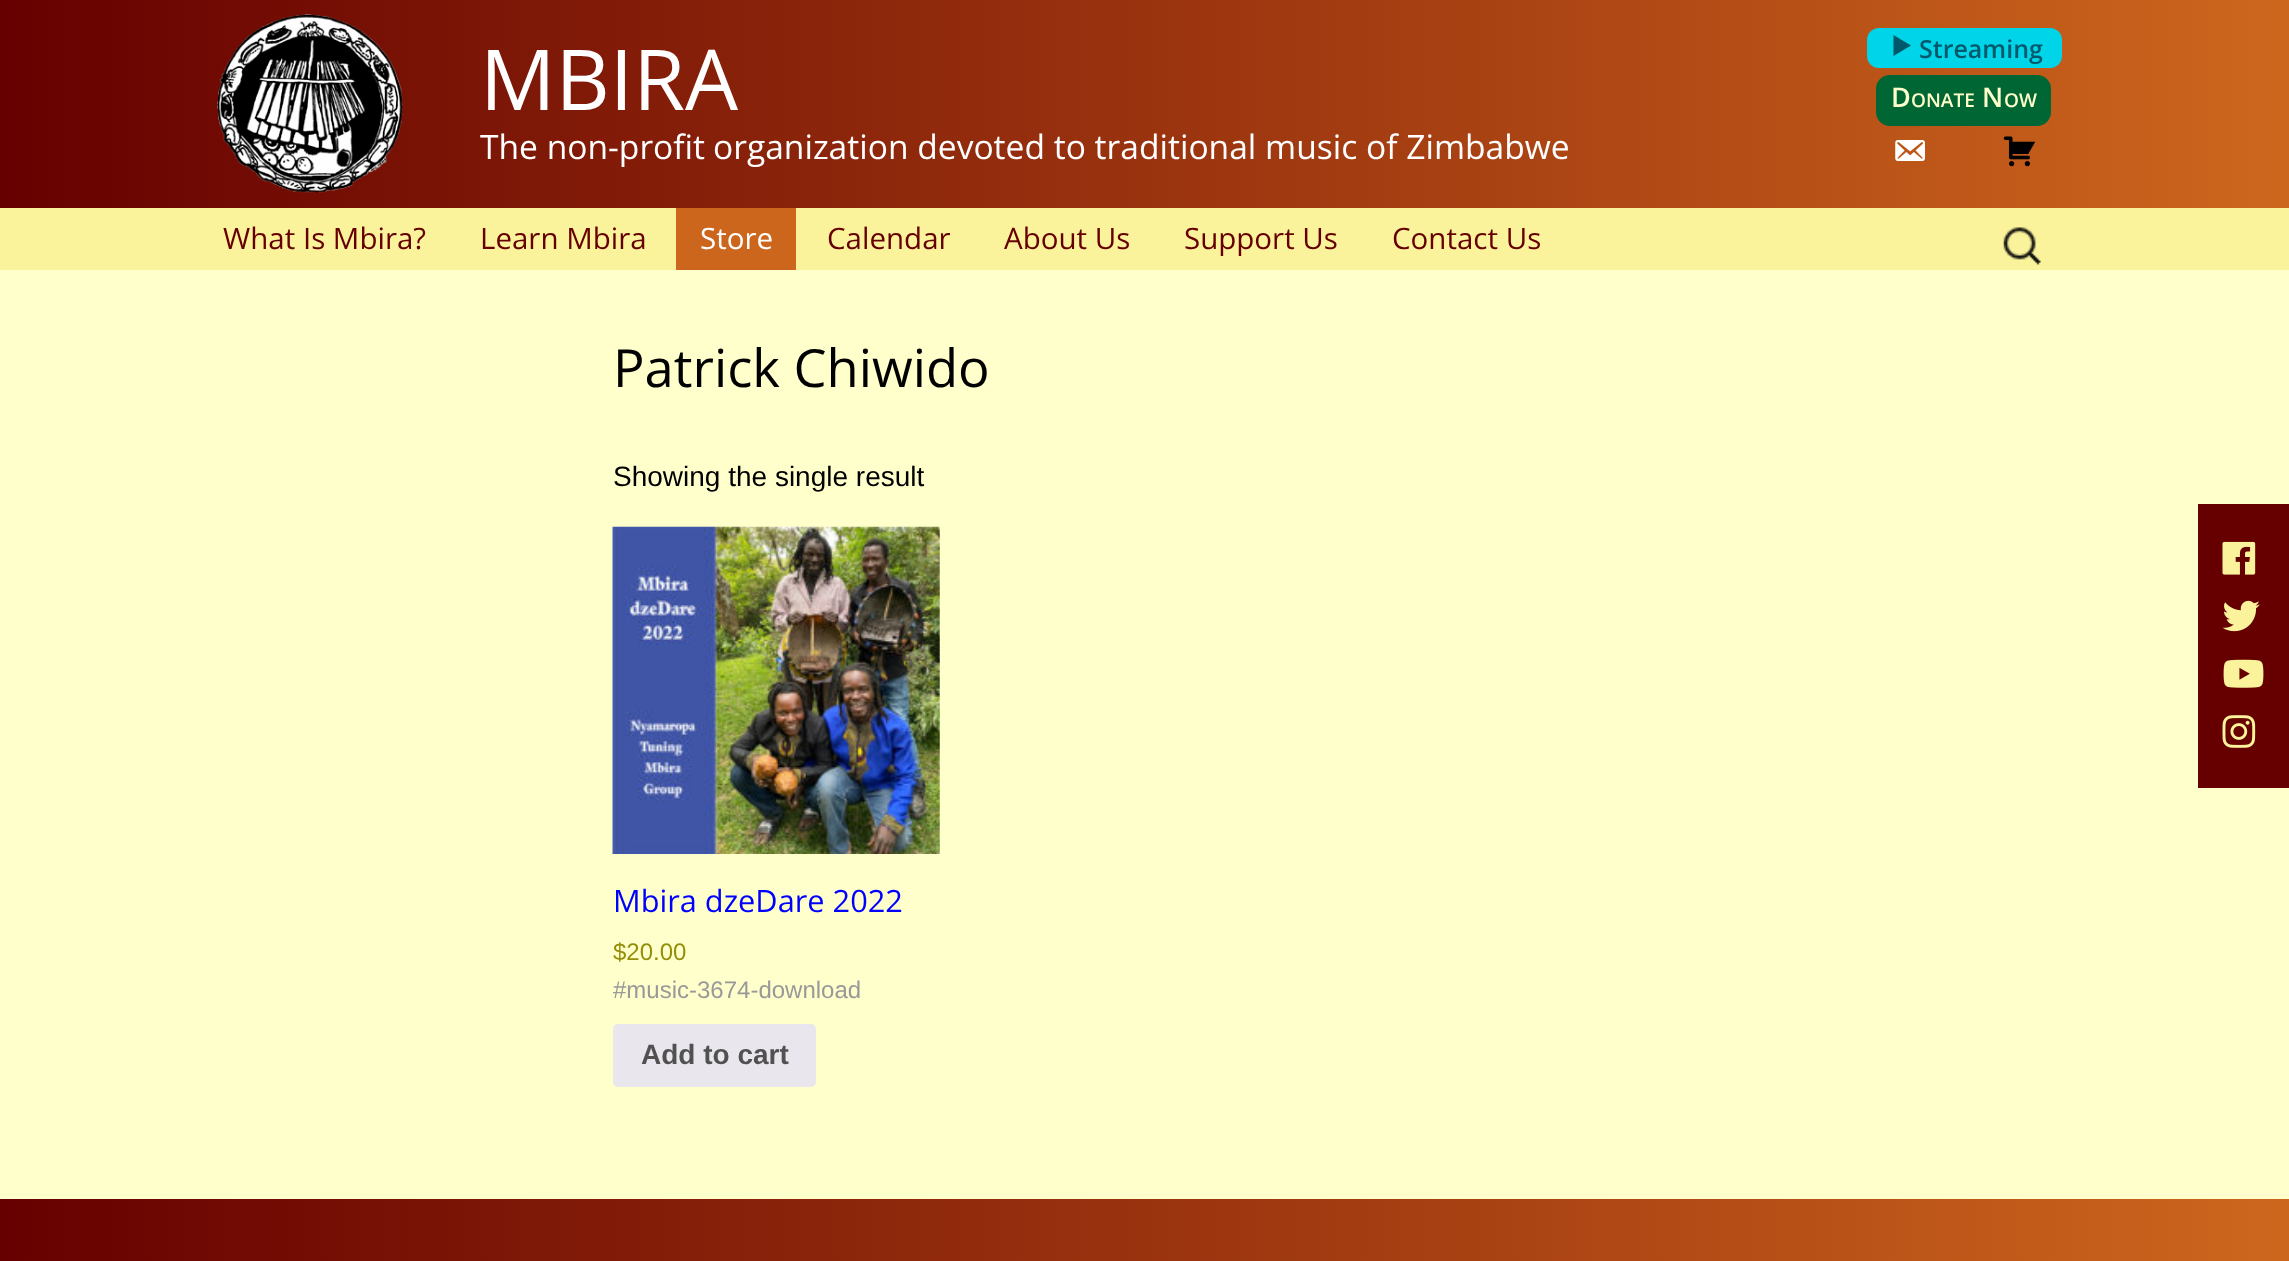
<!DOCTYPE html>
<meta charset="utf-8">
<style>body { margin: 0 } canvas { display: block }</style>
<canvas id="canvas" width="2289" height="1261"></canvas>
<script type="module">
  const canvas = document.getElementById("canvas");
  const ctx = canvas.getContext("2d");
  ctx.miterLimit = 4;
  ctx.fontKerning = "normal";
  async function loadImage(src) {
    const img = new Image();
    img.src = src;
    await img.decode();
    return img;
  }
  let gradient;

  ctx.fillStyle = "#ffffcc";
  ctx.fillRect(0, 0, 2289, 1261);
  gradient = ctx.createLinearGradient(0, 135, 2289, 135);
  gradient.addColorStop(0, "#660000");
  gradient.addColorStop(1, "#cd661d");
  ctx.fillStyle = gradient;
  ctx.fillRect(0, 0, 2289, 208);
  ctx.drawImage(await loadImage("img1.png"), 217, 14, 186, 179);
  ctx.font = "84px Open Sans";
  ctx.fillStyle = "#ffffff";
  ctx.fillText("MBIRA", 480, 110);
  ctx.save();
  ctx.beginPath();
  ctx.rect(480, 130, 1610, 50);
  ctx.clip();
  ctx.font = "33.6px Open Sans";
  ctx.fillText("The non-profit", 480, 159);
  ctx.restore();
  ctx.font = "33.6px Open Sans";
  ctx.fillText("organization devoted to traditional music of Zimbabwe", 713, 159);
  ctx.fillStyle = "#00d4e9";
  ctx.beginPath();
  ctx.roundRect(1867, 28, 195, 40, 12);
  ctx.fill();
  ctx.fillStyle = "#00586b";
  ctx.beginPath();
  ctx.moveTo(1893.5, 35);
  ctx.lineTo(1911, 45.5);
  ctx.lineTo(1893.5, 56);
  ctx.closePath();
  ctx.fill();
  ctx.font = "600 25px Open Sans";
  ctx.fillText("Streaming", 1919, 58);
  ctx.fillStyle = "#006633";
  ctx.beginPath();
  ctx.roundRect(1876, 75, 175, 51, 14);
  ctx.fill();
  ctx.font = "600 27px Open Sans";
  ctx.fillStyle = "#ffffcc";
  ctx.fillText("D", 1891, 107);
  ctx.font = "600 19px Open Sans";
  ctx.fillText("ONATE", 1911, 107);
  ctx.font = "600 27px Open Sans";
  ctx.fillText("N", 1982, 107);
  ctx.font = "600 19px Open Sans";
  ctx.fillText("OW", 2004, 107);
  ctx.drawImage(await loadImage("img2.png"), 1895, 140, 30, 21);
  ctx.drawImage(await loadImage("img3.png"), 2003, 136, 33, 31);
  ctx.fillStyle = "#faf39b";
  ctx.fillRect(0, 208, 2289, 62);
  ctx.font = "29.5px Open Sans";
  ctx.fillStyle = "#660000";
  ctx.fillText("What Is Mbira?", 223, 249);
  ctx.fillText("Learn Mbira", 480, 249);
  ctx.fillStyle = "#cd661d";
  ctx.fillRect(676, 208, 120, 62);
  ctx.fillStyle = "#ffffff";
  ctx.fillText("Store", 700, 249);
  ctx.fillStyle = "#660000";
  ctx.fillText("Calendar", 827, 249);
  ctx.fillText("About Us", 1004, 249);
  ctx.fillText("Support Us", 1184, 249);
  ctx.fillText("Contact Us", 1392, 249);
  ctx.drawImage(await loadImage("img4.png"), 2003, 227, 38, 38);
  ctx.font = "52.5px Open Sans";
  ctx.fillStyle = "#000000";
  ctx.fillText("Patrick Chiwido", 613, 387);
  ctx.font = "28px Liberation Sans";
  ctx.fillText("Showing the single result", 613, 486);
  ctx.drawImage(await loadImage("img5.png"), 612, 526, 328, 328);
  ctx.font = "30.75px Open Sans";
  ctx.fillStyle = "#0000ff";
  ctx.fillText("Mbira dzeDare 2022", 613, 912);
  ctx.font = "24px Liberation Sans";
  ctx.fillStyle = "#958e09";
  ctx.fillText("$20.00", 613, 960);
  ctx.fillStyle = "#999999";
  ctx.fillText("#music-3674-download", 613, 998);
  ctx.fillStyle = "#e9e6ed";
  ctx.beginPath();
  ctx.roundRect(613, 1024, 203, 63, 5);
  ctx.fill();
  ctx.font = "bold 28px Liberation Sans";
  ctx.fillStyle = "#515151";
  ctx.fillText("Add to cart", 641, 1064);
  gradient = ctx.createLinearGradient(0, 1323, 2289, 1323);
  gradient.addColorStop(0, "#660000");
  gradient.addColorStop(1, "#cd661d");
  ctx.fillStyle = gradient;
  ctx.fillRect(0, 1199, 2289, 62);
  ctx.fillStyle = "#660000";
  ctx.fillRect(2198, 504, 91, 284);
  ctx.drawImage(await loadImage("img6.png"), 2222, 541, 34, 34);
  ctx.drawImage(await loadImage("img7.png"), 2222, 600, 38, 32);
  ctx.drawImage(await loadImage("img8.png"), 2223, 659, 41, 29);
  ctx.drawImage(await loadImage("img9.png"), 2222, 715, 34, 33);
</script>
